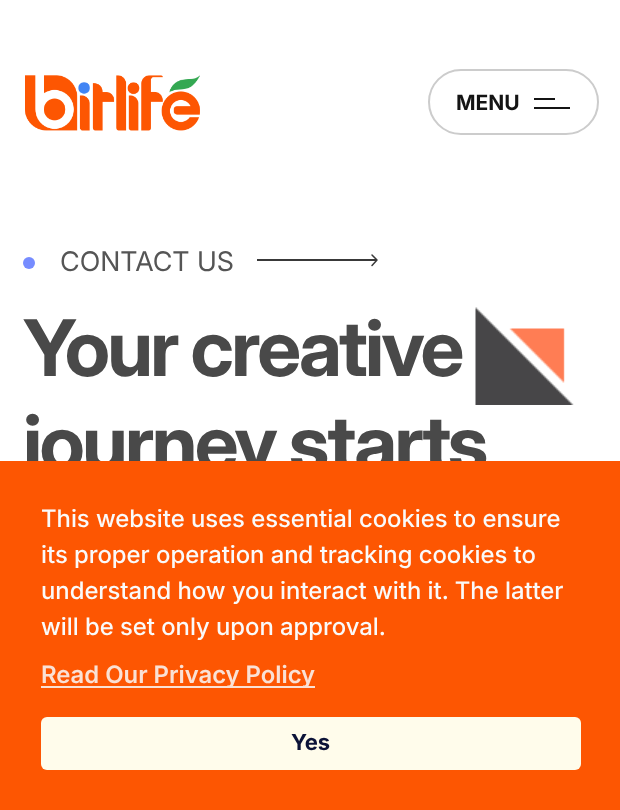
<!DOCTYPE html>
<meta charset="utf-8">
<style>body { margin: 0 } canvas { display: block }</style>
<canvas id="canvas" width="620" height="810"></canvas>
<script type="module">
  const canvas = document.getElementById("canvas");
  const ctx = canvas.getContext("2d");
  ctx.miterLimit = 4;
  ctx.fontKerning = "normal";
  async function loadImage(src) {
    const img = new Image();
    img.src = src;
    await img.decode();
    return img;
  }

  ctx.fillStyle = "#ffffff";
  ctx.fillRect(0, 0, 620, 810);
  ctx.drawImage(await loadImage("img1.png"), 25, 75, 175, 56);
  ctx.beginPath();
  ctx.roundRect(429, 70, 169, 64, 32);
  ctx.strokeStyle = "#cccccc";
  ctx.lineWidth = 2;
  ctx.stroke();
  ctx.font = "bold 21px 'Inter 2'";
  ctx.fillStyle = "#141414";
  ctx.fillText("MENU", 456, 110);
  ctx.fillRect(534, 98, 21, 2);
  ctx.fillRect(534, 107, 36, 2);
  ctx.fillStyle = "#768cff";
  ctx.beginPath();
  ctx.arc(29, 263, 6, 0, Math.PI * 2);
  ctx.fill();
  ctx.font = "27px Inter";
  ctx.fillStyle = "#555555";
  ctx.fillText("CONTACT US", 60, 271);
  ctx.fillStyle = "#393939";
  ctx.fillRect(257, 259, 120, 2);
  ctx.beginPath();
  ctx.moveTo(372, 265.5);
  ctx.lineTo(377, 260);
  ctx.lineTo(372, 255);
  ctx.strokeStyle = "#393939";
  ctx.lineWidth = 1.5;
  ctx.lineCap = "round";
  ctx.lineJoin = "round";
  ctx.stroke();
  ctx.letterSpacing = "-2.75px";
  ctx.font = "bold 78px Inter";
  ctx.fillStyle = "#494949";
  ctx.fillText("Your creative", 23, 376);
  ctx.drawImage(await loadImage("img2.png"), 475, 307, 99, 98);
  ctx.fillText("journey starts", 23, 471);
  ctx.fillStyle = "#fd5602";
  ctx.fillRect(0, 461, 620, 349);
  ctx.letterSpacing = "0px";
  ctx.font = "500 24px Inter";
  ctx.fillStyle = "#fafafa";
  ctx.fillText("This website uses essential cookies to ensure", 41, 527);
  ctx.fillText("its proper operation and tracking cookies to", 41, 563);
  ctx.fillText("understand how you interact with it. The latter", 41, 599);
  ctx.fillText("will be set only upon approval.", 41, 635);
  ctx.fillStyle = "#fae1d5";
  ctx.fillRect(41, 686, 274, 2);
  ctx.font = "600 24px Inter";
  ctx.fillText("Read Our Privacy Policy", 41, 683);
  ctx.fillStyle = "#fffceb";
  ctx.beginPath();
  ctx.roundRect(41, 717, 540, 53, 6);
  ctx.fill();
  ctx.font = "bold 22px 'Inter 2'";
  ctx.fillStyle = "#0c1338";
  ctx.fillText("Yes", 291, 750);
</script>
